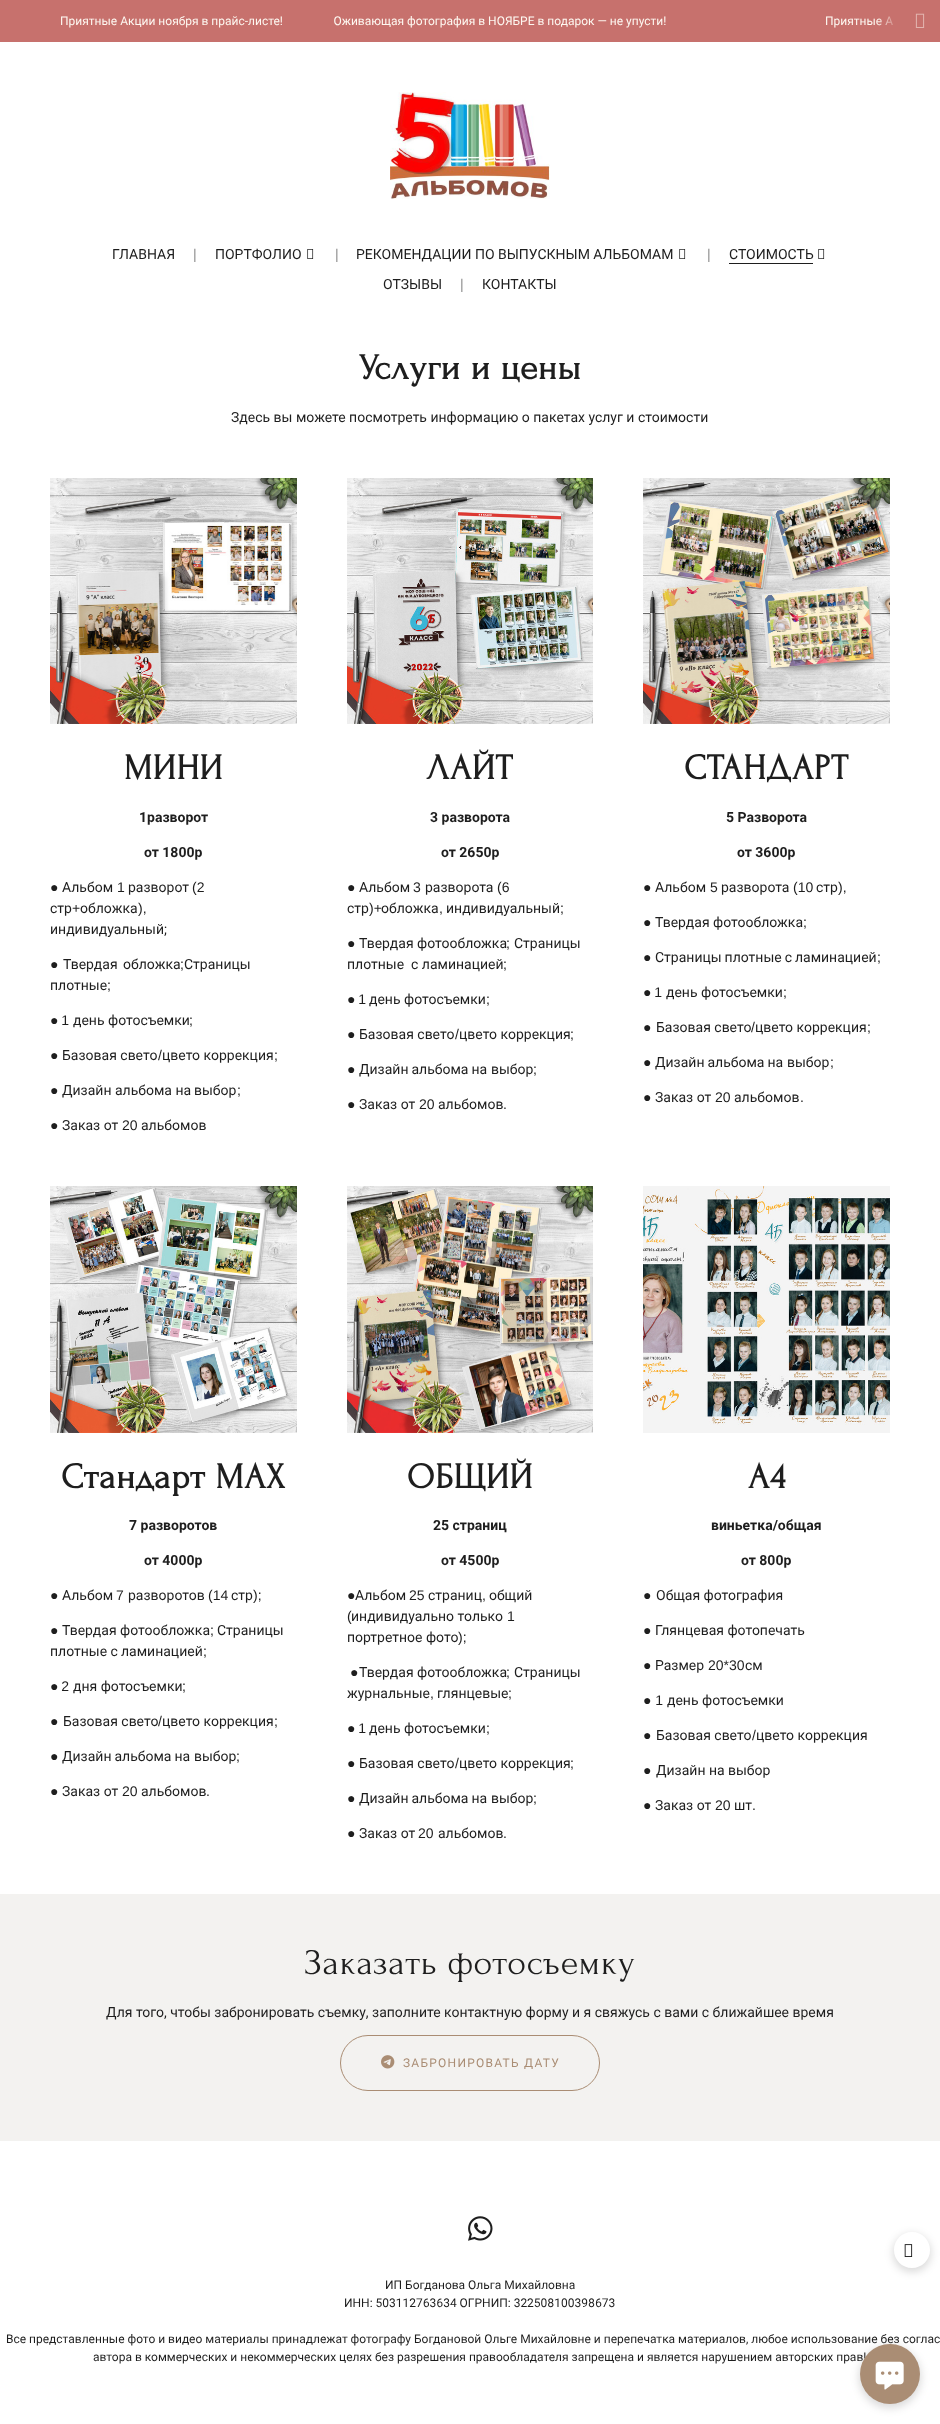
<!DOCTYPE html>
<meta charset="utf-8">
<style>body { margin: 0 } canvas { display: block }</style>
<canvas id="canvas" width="940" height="2424"></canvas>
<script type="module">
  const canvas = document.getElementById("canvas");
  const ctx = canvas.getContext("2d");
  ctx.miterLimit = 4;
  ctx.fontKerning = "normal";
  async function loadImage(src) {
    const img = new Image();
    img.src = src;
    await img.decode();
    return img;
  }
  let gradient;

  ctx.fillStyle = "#ffffff";
  ctx.fillRect(0, 0, 940, 2424);
  ctx.fillStyle = "#c7716d";
  ctx.fillRect(0, 0, 940, 42);
  ctx.font = "12px Roboto";
  ctx.fillStyle = "#fef8f1";
  ctx.fillText("Приятные Акции ноября в прайс-листе!                 Оживающая фотография в НОЯБРЕ в подарок — не упусти!", 60, 25);
  ctx.fillText("Приятные А", 825, 25);
  gradient = ctx.createLinearGradient(876, 21, 900, 21);
  gradient.addColorStop(0, "rgba(199, 113, 109, 0)");
  gradient.addColorStop(1, "#c7716d");
  ctx.fillStyle = gradient;
  ctx.fillRect(877, 16, 16, 9);
  ctx.drawImage(await loadImage("img1.png"), 915, 13, 10, 15);
  ctx.drawImage(await loadImage("img2.png"), 390, 92, 160, 107);
  ctx.font = "14px Roboto";
  ctx.fillStyle = "#1e1e1e";
  ctx.fillText("ГЛАВНАЯ", 112, 259);
  ctx.font = "14px Liberation Sans";
  ctx.fillStyle = "#8f8f8f";
  ctx.fillText("|", 193, 259);
  ctx.font = "14px Roboto";
  ctx.fillStyle = "#1e1e1e";
  ctx.fillText("ПОРТФОЛИО", 215, 259);
  ctx.drawImage(await loadImage("img3.png"), 307, 249, 7, 10);
  ctx.font = "14px Liberation Sans";
  ctx.fillStyle = "#8f8f8f";
  ctx.fillText("|", 335, 259);
  ctx.font = "14px Roboto";
  ctx.fillStyle = "#1e1e1e";
  ctx.fillText("РЕКОМЕНДАЦИИ ПО ВЫПУСКНЫМ АЛЬБОМАМ", 356, 259);
  ctx.drawImage(await loadImage("img3.png"), 679, 249, 7, 10);
  ctx.font = "14px Liberation Sans";
  ctx.fillStyle = "#8f8f8f";
  ctx.fillText("|", 707, 259);
  ctx.font = "14px Roboto";
  ctx.fillStyle = "#1e1e1e";
  ctx.fillText("СТОИМОСТЬ", 729, 259);
  ctx.fillRect(729, 263, 84, 1);
  ctx.drawImage(await loadImage("img3.png"), 818, 249, 7, 10);
  ctx.fillText("ОТЗЫВЫ", 383, 289);
  ctx.font = "14px Liberation Sans";
  ctx.fillStyle = "#8f8f8f";
  ctx.fillText("|", 460, 289);
  ctx.font = "14px Roboto";
  ctx.fillStyle = "#1e1e1e";
  ctx.fillText("КОНТАКТЫ", 482, 289);
  ctx.letterSpacing = "0.75px";
  ctx.font = "bold 36px Forum";
  ctx.fillText("Услуги и цены", 359, 379);
  ctx.letterSpacing = "0px";
  ctx.font = "14px Roboto";
  ctx.fillText("Здесь вы можете посмотреть информацию о пакетах услуг и стоимости", 231, 422);
  ctx.drawImage(await loadImage("img4.png"), 50, 478, 247, 246);
  ctx.letterSpacing = "0.75px";
  ctx.font = "bold 36px Forum";
  ctx.fillText("МИНИ", 124, 779);
  ctx.letterSpacing = "0px";
  ctx.font = "bold 14px Roboto";
  ctx.fillText("1разворот", 139, 822);
  ctx.fillText("от 1800р", 144, 857);
  ctx.font = "14px Liberation Sans";
  ctx.fillText("●", 50, 892);
  ctx.font = "14px Roboto";
  ctx.fillText("Альбом", 62, 892);
  ctx.font = "14px Liberation Sans";
  ctx.fillText("1", 117, 892);
  ctx.font = "14px Roboto";
  ctx.fillText("разворот", 128, 892);
  ctx.font = "14px Liberation Sans";
  ctx.fillText("(2", 192, 892);
  ctx.font = "14px Roboto";
  ctx.fillText("стр", 50, 913);
  ctx.font = "14px Liberation Sans";
  ctx.fillText("+", 72, 913);
  ctx.font = "14px Roboto";
  ctx.fillText("обложка", 80, 913);
  ctx.font = "14px Liberation Sans";
  ctx.fillText("),", 138, 913);
  ctx.font = "14px Roboto";
  ctx.fillText("индивидуальный;", 50, 934);
  ctx.font = "14px Liberation Sans";
  ctx.fillText("●", 50, 969);
  ctx.font = "14px Roboto";
  ctx.fillText("Твердая", 63, 969);
  ctx.fillText("обложка", 123, 969);
  ctx.font = "14px Liberation Sans";
  ctx.fillText(";", 180, 969);
  ctx.font = "14px Roboto";
  ctx.fillText("Страницы", 184, 969);
  ctx.fillText("плотные", 50, 990);
  ctx.font = "14px Liberation Sans";
  ctx.fillText(";", 107, 990);
  ctx.wordSpacing = "-1px";
  ctx.fillText("● 1", 50, 1025);
  ctx.wordSpacing = "0px";
  ctx.font = "14px Roboto";
  ctx.fillText("день фотосъемки", 73, 1025);
  ctx.font = "14px Liberation Sans";
  ctx.fillText(";", 189, 1025);
  ctx.fillText("●", 50, 1060);
  ctx.font = "14px Roboto";
  ctx.fillText("Базовая свето", 62, 1060);
  ctx.font = "14px Liberation Sans";
  ctx.fillText("/", 158, 1060);
  ctx.font = "14px Roboto";
  ctx.fillText("цвето коррекция", 162, 1060);
  ctx.font = "14px Liberation Sans";
  ctx.fillText(";", 274, 1060);
  ctx.fillText("●", 50, 1095);
  ctx.font = "14px Roboto";
  ctx.fillText("Дизайн альбома на", 62, 1095);
  ctx.fillText("выбор", 194, 1095);
  ctx.font = "14px Liberation Sans";
  ctx.fillText(";", 237, 1095);
  ctx.fillText("●", 50, 1130);
  ctx.font = "14px Roboto";
  ctx.fillText("Заказ от", 62, 1130);
  ctx.font = "14px Liberation Sans";
  ctx.fillText("20", 122, 1130);
  ctx.font = "14px Roboto";
  ctx.fillText("альбомов", 141, 1130);
  ctx.drawImage(await loadImage("img5.png"), 347, 478, 246, 246);
  ctx.letterSpacing = "0.75px";
  ctx.font = "bold 36px Forum";
  ctx.fillText("ЛАЙТ", 426, 779);
  ctx.letterSpacing = "0px";
  ctx.font = "bold 14px Roboto";
  ctx.fillText("3 разворота", 430, 822);
  ctx.fillText("от 2650р", 441, 857);
  ctx.font = "14px Liberation Sans";
  ctx.fillText("●", 347, 892);
  ctx.font = "14px Roboto";
  ctx.fillText("Альбом", 359, 892);
  ctx.font = "14px Liberation Sans";
  ctx.fillText("3", 413, 892);
  ctx.font = "14px Roboto";
  ctx.fillText("разворота", 425, 892);
  ctx.font = "14px Liberation Sans";
  ctx.fillText("(6", 497, 892);
  ctx.font = "14px Roboto";
  ctx.fillText("стр", 347, 913);
  ctx.font = "14px Liberation Sans";
  ctx.fillText(")+", 369, 913);
  ctx.font = "14px Roboto";
  ctx.fillText("обложка", 381, 913);
  ctx.font = "14px Liberation Sans";
  ctx.fillText(",", 439, 913);
  ctx.font = "14px Roboto";
  ctx.fillText("индивидуальный", 446, 913);
  ctx.font = "14px Liberation Sans";
  ctx.fillText(";", 560, 913);
  ctx.fillText("●", 347, 948);
  ctx.font = "14px Roboto";
  ctx.fillText("Твердая фотообложка", 359, 948);
  ctx.font = "14px Liberation Sans";
  ctx.fillText(";", 506, 948);
  ctx.font = "14px Roboto";
  ctx.fillText("Страницы", 514, 948);
  ctx.fillText("плотные", 347, 969);
  ctx.fillText("с ламинацией", 411, 969);
  ctx.font = "14px Liberation Sans";
  ctx.fillText(";", 503, 969);
  ctx.wordSpacing = "-1px";
  ctx.fillText("● 1", 347, 1004);
  ctx.wordSpacing = "0px";
  ctx.font = "14px Roboto";
  ctx.fillText("день фотосъемки", 369, 1004);
  ctx.font = "14px Liberation Sans";
  ctx.fillText(";", 486, 1004);
  ctx.fillText("●", 347, 1039);
  ctx.font = "14px Roboto";
  ctx.fillText("Базовая свето", 359, 1039);
  ctx.font = "14px Liberation Sans";
  ctx.fillText("/", 455, 1039);
  ctx.font = "14px Roboto";
  ctx.fillText("цвето коррекция", 459, 1039);
  ctx.font = "14px Liberation Sans";
  ctx.fillText(";", 570, 1039);
  ctx.fillText("●", 347, 1074);
  ctx.wordSpacing = "-0.5px";
  ctx.font = "14px Roboto";
  ctx.fillText("Дизайн альбома на", 359, 1074);
  ctx.wordSpacing = "0px";
  ctx.fillText("выбор", 491, 1074);
  ctx.font = "14px Liberation Sans";
  ctx.fillText(";", 533, 1074);
  ctx.fillText("●", 347, 1109);
  ctx.font = "14px Roboto";
  ctx.fillText("Заказ от", 359, 1109);
  ctx.font = "14px Liberation Sans";
  ctx.fillText("20", 419, 1109);
  ctx.font = "14px Roboto";
  ctx.fillText("альбомов", 438, 1109);
  ctx.font = "14px Liberation Sans";
  ctx.fillText(".", 503, 1109);
  ctx.drawImage(await loadImage("img6.png"), 643, 478, 247, 246);
  ctx.letterSpacing = "0.75px";
  ctx.font = "bold 36px Forum";
  ctx.fillText("СТАНДАРТ", 684, 779);
  ctx.letterSpacing = "0px";
  ctx.font = "bold 14px Roboto";
  ctx.fillText("5 Разворота", 726, 822);
  ctx.fillText("от 3600р", 737, 857);
  ctx.font = "14px Liberation Sans";
  ctx.fillText("●", 643, 892);
  ctx.font = "14px Roboto";
  ctx.fillText("Альбом", 655, 892);
  ctx.font = "14px Liberation Sans";
  ctx.fillText("5", 710, 892);
  ctx.font = "14px Roboto";
  ctx.fillText("разворота", 721, 892);
  ctx.font = "14px Liberation Sans";
  ctx.fillText("(10", 793, 892);
  ctx.font = "14px Roboto";
  ctx.fillText("стр", 816, 892);
  ctx.font = "14px Liberation Sans";
  ctx.fillText("),", 838, 892);
  ctx.fillText("●", 643, 927);
  ctx.font = "14px Roboto";
  ctx.fillText("Твердая фотообложка", 655, 927);
  ctx.font = "14px Liberation Sans";
  ctx.fillText(";", 803, 927);
  ctx.fillText("●", 643, 962);
  ctx.wordSpacing = "-0.5px";
  ctx.font = "14px Roboto";
  ctx.fillText("Страницы плотные с ламинацией", 655, 962);
  ctx.wordSpacing = "0px";
  ctx.font = "14px Liberation Sans";
  ctx.fillText(";", 877, 962);
  ctx.wordSpacing = "-1px";
  ctx.fillText("● 1", 643, 997);
  ctx.wordSpacing = "0px";
  ctx.font = "14px Roboto";
  ctx.fillText("день фотосъемки", 666, 997);
  ctx.font = "14px Liberation Sans";
  ctx.fillText(";", 783, 997);
  ctx.fillText("●", 643, 1032);
  ctx.font = "14px Roboto";
  ctx.fillText("Базовая свето", 656, 1032);
  ctx.font = "14px Liberation Sans";
  ctx.fillText("/", 751, 1032);
  ctx.font = "14px Roboto";
  ctx.fillText("цвето коррекция", 755, 1032);
  ctx.font = "14px Liberation Sans";
  ctx.fillText(";", 867, 1032);
  ctx.fillText("●", 643, 1067);
  ctx.wordSpacing = "-0.5px";
  ctx.font = "14px Roboto";
  ctx.fillText("Дизайн альбома на", 655, 1067);
  ctx.wordSpacing = "0px";
  ctx.fillText("выбор", 787, 1067);
  ctx.font = "14px Liberation Sans";
  ctx.fillText(";", 830, 1067);
  ctx.fillText("●", 643, 1102);
  ctx.font = "14px Roboto";
  ctx.fillText("Заказ от", 655, 1102);
  ctx.font = "14px Liberation Sans";
  ctx.fillText("20", 715, 1102);
  ctx.font = "14px Roboto";
  ctx.fillText("альбомов", 734, 1102);
  ctx.font = "14px Liberation Sans";
  ctx.fillText(".", 800, 1102);
  ctx.drawImage(await loadImage("img7.png"), 50, 1186, 247, 247);
  ctx.letterSpacing = "0.75px";
  ctx.font = "bold 36px Forum";
  ctx.fillText("Стандарт МАХ", 61, 1488);
  ctx.letterSpacing = "0px";
  ctx.font = "bold 14px Roboto";
  ctx.fillText("7 разворотов", 129, 1530);
  ctx.fillText("от 4000р", 144, 1565);
  ctx.font = "14px Liberation Sans";
  ctx.fillText("●", 50, 1600);
  ctx.font = "14px Roboto";
  ctx.fillText("Альбом", 62, 1600);
  ctx.font = "14px Liberation Sans";
  ctx.fillText("7", 116, 1600);
  ctx.font = "14px Roboto";
  ctx.fillText("разворотов", 128, 1600);
  ctx.font = "14px Liberation Sans";
  ctx.fillText("(14", 208, 1600);
  ctx.font = "14px Roboto";
  ctx.fillText("стр", 231, 1600);
  ctx.font = "14px Liberation Sans";
  ctx.fillText(");", 253, 1600);
  ctx.fillText("●", 50, 1635);
  ctx.font = "14px Roboto";
  ctx.fillText("Твердая фотообложка", 62, 1635);
  ctx.font = "14px Liberation Sans";
  ctx.fillText(";", 210, 1635);
  ctx.font = "14px Roboto";
  ctx.fillText("Страницы", 217, 1635);
  ctx.fillText("плотные с", 50, 1656);
  ctx.fillText("ламинацией", 121, 1656);
  ctx.font = "14px Liberation Sans";
  ctx.fillText(";", 203, 1656);
  ctx.wordSpacing = "-1px";
  ctx.fillText("● 2", 50, 1691);
  ctx.wordSpacing = "0px";
  ctx.font = "14px Roboto";
  ctx.fillText("дня фотосъемки", 73, 1691);
  ctx.font = "14px Liberation Sans";
  ctx.fillText(";", 182, 1691);
  ctx.fillText("●", 50, 1726);
  ctx.font = "14px Roboto";
  ctx.fillText("Базовая свето", 63, 1726);
  ctx.font = "14px Liberation Sans";
  ctx.fillText("/", 158, 1726);
  ctx.font = "14px Roboto";
  ctx.fillText("цвето коррекция", 162, 1726);
  ctx.font = "14px Liberation Sans";
  ctx.fillText(";", 274, 1726);
  ctx.fillText("●", 50, 1761);
  ctx.wordSpacing = "-0.5px";
  ctx.font = "14px Roboto";
  ctx.fillText("Дизайн альбома на", 62, 1761);
  ctx.wordSpacing = "0px";
  ctx.fillText("выбор", 194, 1761);
  ctx.font = "14px Liberation Sans";
  ctx.fillText(";", 236, 1761);
  ctx.fillText("●", 50, 1796);
  ctx.font = "14px Roboto";
  ctx.fillText("Заказ от", 62, 1796);
  ctx.font = "14px Liberation Sans";
  ctx.fillText("20", 122, 1796);
  ctx.font = "14px Roboto";
  ctx.fillText("альбомов", 141, 1796);
  ctx.font = "14px Liberation Sans";
  ctx.fillText(".", 206, 1796);
  ctx.drawImage(await loadImage("img8.png"), 347, 1186, 246, 247);
  ctx.letterSpacing = "0.75px";
  ctx.font = "bold 36px Forum";
  ctx.fillText("ОБЩИЙ", 407, 1488);
  ctx.letterSpacing = "0px";
  ctx.font = "bold 14px Roboto";
  ctx.fillText("25 страниц", 433, 1530);
  ctx.fillText("от 4500р", 441, 1565);
  ctx.font = "14px Liberation Sans";
  ctx.fillText("●", 347, 1600);
  ctx.font = "14px Roboto";
  ctx.fillText("Альбом", 355, 1600);
  ctx.font = "14px Liberation Sans";
  ctx.fillText("25", 409, 1600);
  ctx.font = "14px Roboto";
  ctx.fillText("страниц", 428, 1600);
  ctx.font = "14px Liberation Sans";
  ctx.fillText(",", 482, 1600);
  ctx.font = "14px Roboto";
  ctx.fillText("общий", 489, 1600);
  ctx.font = "14px Liberation Sans";
  ctx.fillText("(", 347, 1621);
  ctx.font = "14px Roboto";
  ctx.fillText("индивидуально только", 351, 1621);
  ctx.font = "14px Liberation Sans";
  ctx.fillText("1", 507, 1621);
  ctx.font = "14px Roboto";
  ctx.fillText("портретное фото", 347, 1642);
  ctx.font = "14px Liberation Sans";
  ctx.fillText(");", 458, 1642);
  ctx.fillText("●", 350, 1677);
  ctx.font = "14px Roboto";
  ctx.fillText("Твердая фотообложка", 359, 1677);
  ctx.font = "14px Liberation Sans";
  ctx.fillText(";", 506, 1677);
  ctx.font = "14px Roboto";
  ctx.fillText("Страницы", 514, 1677);
  ctx.fillText("журнальные", 347, 1698);
  ctx.font = "14px Liberation Sans";
  ctx.fillText(",", 430, 1698);
  ctx.font = "14px Roboto";
  ctx.fillText("глянцевые", 437, 1698);
  ctx.font = "14px Liberation Sans";
  ctx.fillText(";", 508, 1698);
  ctx.wordSpacing = "-1px";
  ctx.fillText("● 1", 347, 1733);
  ctx.wordSpacing = "0px";
  ctx.font = "14px Roboto";
  ctx.fillText("день фотосъемки", 369, 1733);
  ctx.font = "14px Liberation Sans";
  ctx.fillText(";", 486, 1733);
  ctx.fillText("●", 347, 1768);
  ctx.font = "14px Roboto";
  ctx.fillText("Базовая свето", 359, 1768);
  ctx.font = "14px Liberation Sans";
  ctx.fillText("/", 455, 1768);
  ctx.font = "14px Roboto";
  ctx.fillText("цвето коррекция", 459, 1768);
  ctx.font = "14px Liberation Sans";
  ctx.fillText(";", 570, 1768);
  ctx.fillText("●", 347, 1803);
  ctx.wordSpacing = "-0.5px";
  ctx.font = "14px Roboto";
  ctx.fillText("Дизайн альбома на", 359, 1803);
  ctx.wordSpacing = "0px";
  ctx.fillText("выбор", 491, 1803);
  ctx.font = "14px Liberation Sans";
  ctx.fillText(";", 533, 1803);
  ctx.fillText("●", 347, 1838);
  ctx.font = "14px Roboto";
  ctx.fillText("Заказ от", 359, 1838);
  ctx.font = "14px Liberation Sans";
  ctx.fillText("20", 418, 1838);
  ctx.font = "14px Roboto";
  ctx.fillText("альбомов", 438, 1838);
  ctx.font = "14px Liberation Sans";
  ctx.fillText(".", 503, 1838);
  ctx.drawImage(await loadImage("img9.png"), 643, 1186, 247, 247);
  ctx.letterSpacing = "0.75px";
  ctx.font = "bold 36px Forum";
  ctx.fillText("А4", 748, 1488);
  ctx.letterSpacing = "0px";
  ctx.font = "bold 14px Roboto";
  ctx.fillText("виньетка/общая", 711, 1530);
  ctx.fillText("от 800р", 741, 1565);
  ctx.font = "14px Liberation Sans";
  ctx.fillText("●", 643, 1600);
  ctx.font = "14px Roboto";
  ctx.fillText("Общая фотография", 656, 1600);
  ctx.font = "14px Liberation Sans";
  ctx.fillText("●", 643, 1635);
  ctx.font = "14px Roboto";
  ctx.fillText("Глянцевая фотопечать", 655, 1635);
  ctx.font = "14px Liberation Sans";
  ctx.fillText("●", 643, 1670);
  ctx.font = "14px Roboto";
  ctx.fillText("Размер", 655, 1670);
  ctx.font = "14px Liberation Sans";
  ctx.fillText("20*30", 708, 1670);
  ctx.font = "14px Roboto";
  ctx.fillText("см", 745, 1670);
  ctx.font = "14px Liberation Sans";
  ctx.fillText("● 1", 643, 1705);
  ctx.font = "14px Roboto";
  ctx.fillText("день фотосъемки", 667, 1705);
  ctx.font = "14px Liberation Sans";
  ctx.fillText("●", 643, 1740);
  ctx.font = "14px Roboto";
  ctx.fillText("Базовая свето", 656, 1740);
  ctx.font = "14px Liberation Sans";
  ctx.fillText("/", 752, 1740);
  ctx.font = "14px Roboto";
  ctx.fillText("цвето коррекция", 756, 1740);
  ctx.font = "14px Liberation Sans";
  ctx.fillText("●", 643, 1775);
  ctx.font = "14px Roboto";
  ctx.fillText("Дизайн на", 656, 1775);
  ctx.fillText("выбор", 728, 1775);
  ctx.font = "14px Liberation Sans";
  ctx.fillText("●", 643, 1810);
  ctx.font = "14px Roboto";
  ctx.fillText("Заказ от", 655, 1810);
  ctx.font = "14px Liberation Sans";
  ctx.fillText("20", 715, 1810);
  ctx.font = "14px Roboto";
  ctx.fillText("шт", 734, 1810);
  ctx.font = "14px Liberation Sans";
  ctx.fillText(".", 752, 1810);
  ctx.fillStyle = "#f3f2f0";
  ctx.fillRect(0, 1894, 940, 247);
  ctx.letterSpacing = "0.75px";
  ctx.font = "36px Forum";
  ctx.fillStyle = "#1e1e1e";
  ctx.fillText("Заказать фотосъемку", 305, 1974);
  ctx.letterSpacing = "0px";
  ctx.font = "14px Roboto";
  ctx.fillText("Для того, чтобы забронировать съемку, заполните контактную форму и я свяжусь с вами с ближайшее время", 106, 2017);
  ctx.beginPath();
  ctx.roundRect(340.5, 2035.5, 259, 55, 27.5);
  ctx.strokeStyle = "#aa8d74";
  ctx.stroke();
  ctx.drawImage(await loadImage("img10.png"), 381, 2055, 14, 14);
  ctx.letterSpacing = "1.25px";
  ctx.font = "12px Roboto";
  ctx.fillStyle = "#aa8d74";
  ctx.fillText("ЗАБРОНИРОВАТЬ ДАТУ", 403, 2067);
  ctx.drawImage(await loadImage("img11.png"), 468, 2216, 25, 25);
  ctx.letterSpacing = "0px";
  ctx.fillStyle = "#1e1e1e";
  ctx.fillText("ИП Богданова Ольга Михайловна", 385, 2289);
  ctx.font = "12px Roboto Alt";
  ctx.fillText("ИНН: 503112763634 ОГРНИП: 322508100398673", 344, 2307);
  ctx.font = "12px Roboto";
  ctx.fillText("Все представленные фото и видео материалы принадлежат фотографу Богдановой Ольге Михайловне и перепечатка материалов, любое использование без соглас", 6, 2343);
  ctx.fillText("автора в коммерческих и некоммерческих целях без разрешения правообладателя запрещена и является нарушением авторских прав!", 93, 2361);
  ctx.save();
  ctx.beginPath();
  ctx.moveTo(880, 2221);
  ctx.lineTo(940, 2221);
  ctx.lineTo(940, 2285);
  ctx.lineTo(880, 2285);
  ctx.closePath();
  ctx.moveTo(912, 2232);
  ctx.bezierCurveTo(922, 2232, 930, 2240, 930, 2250);
  ctx.bezierCurveTo(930, 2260, 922, 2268, 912, 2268);
  ctx.bezierCurveTo(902, 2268, 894, 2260, 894, 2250);
  ctx.bezierCurveTo(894, 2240, 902, 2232, 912, 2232);
  ctx.closePath();
  ctx.clip("evenodd");
  ctx.fillStyle = "rgba(0, 0, 0, 0.15)";
  ctx.filter = "blur(4px)";
  ctx.beginPath();
  ctx.roundRect(893, 2234, 38, 38, 19);
  ctx.fill();
  ctx.filter = "none";
  ctx.restore();
  ctx.drawImage(await loadImage("img12.png"), 904, 2244, 9, 13);
  ctx.fillStyle = "rgba(0, 0, 0, 0.15)";
  ctx.filter = "blur(4px)";
  ctx.beginPath();
  ctx.roundRect(859, 2346, 62, 62, 31);
  ctx.fill();
  ctx.filter = "none";
  ctx.fillStyle = "#aa8d74";
  ctx.beginPath();
  ctx.arc(890, 2374, 30, 0, Math.PI * 2);
  ctx.fill();
  ctx.drawImage(await loadImage("img13.png"), 875, 2361, 29, 29);
</script>
